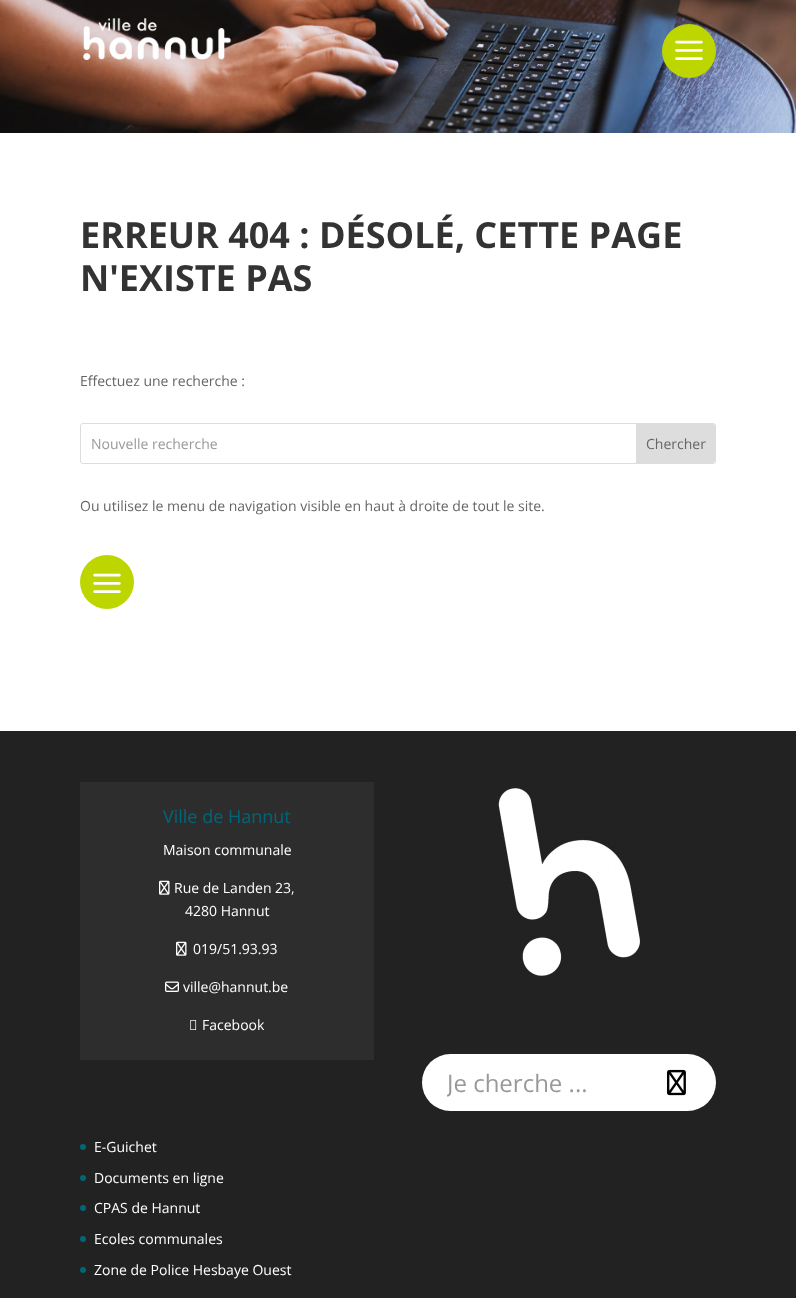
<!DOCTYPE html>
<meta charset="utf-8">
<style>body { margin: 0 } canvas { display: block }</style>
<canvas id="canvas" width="796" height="1298"></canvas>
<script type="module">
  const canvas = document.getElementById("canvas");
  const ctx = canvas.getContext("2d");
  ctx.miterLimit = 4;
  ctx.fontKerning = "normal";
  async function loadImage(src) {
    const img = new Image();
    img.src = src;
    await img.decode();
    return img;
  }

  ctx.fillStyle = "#ffffff";
  ctx.fillRect(0, 0, 796, 1298);
  ctx.drawImage(await loadImage("img3.png"), 0, 0, 796, 133);
  ctx.drawImage(await loadImage("img1.png"), 83, 18, 148, 42);
  ctx.fillStyle = "#bed600";
  ctx.beginPath();
  ctx.arc(689, 51, 27, 0, Math.PI * 2);
  ctx.fill();
  ctx.drawImage(await loadImage("img2.png"), 675, 40, 28, 20);
  ctx.font = "bold 36px Open Sans";
  ctx.fillStyle = "#333333";
  ctx.fillText("ERREUR 404 : DÉSOLÉ, CETTE PAGE", 80, 248);
  ctx.fillText("N'EXISTE PAS", 80, 291);
  ctx.font = "14px Open Sans";
  ctx.fillStyle = "#666666";
  ctx.fillText("Effectuez une recherche :", 80, 386);
  ctx.beginPath();
  ctx.roundRect(80.5, 423.5, 635, 40, 2.5);
  ctx.strokeStyle = "#dddddd";
  ctx.stroke();
  ctx.fillStyle = "#999999";
  ctx.fillText("Nouvelle recherche", 91, 449);
  ctx.fillStyle = "#dddddd";
  ctx.beginPath();
  ctx.roundRect(636, 424, 79, 39, [0, 2, 2, 0]);
  ctx.fill();
  ctx.fillStyle = "#666666";
  ctx.fillText("Chercher", 646, 449);
  ctx.fillText("Ou utilisez le menu de navigation visible en haut à droite de tout le site.", 80, 511);
  ctx.fillStyle = "#bed600";
  ctx.beginPath();
  ctx.arc(107, 582, 27, 0, Math.PI * 2);
  ctx.fill();
  ctx.drawImage(await loadImage("img2.png"), 93, 573, 28, 20);
  ctx.fillStyle = "#222222";
  ctx.fillRect(0, 731, 796, 567);
  ctx.fillStyle = "#2d2d2d";
  ctx.fillRect(80, 782, 294, 278);
  ctx.font = "18px Open Sans";
  ctx.fillStyle = "#006778";
  ctx.fillText("Ville de Hannut", 163, 823);
  ctx.font = "14px Open Sans";
  ctx.fillStyle = "#ffffff";
  ctx.fillText("Maison communale", 163, 855);
  ctx.drawImage(await loadImage("img4.png"), 159, 880, 11, 15);
  ctx.fillText("Rue de Landen 23,", 174, 893);
  ctx.fillText("4280 Hannut", 185, 916);
  ctx.drawImage(await loadImage("img4.png"), 176, 941, 11, 15);
  ctx.fillText("019/51.93.93", 193, 954);
  ctx.drawImage(await loadImage("img5.png"), 165, 981, 14, 11);
  ctx.fillText("ville@hannut.be", 183, 992);
  ctx.drawImage(await loadImage("img6.png"), 190, 1020, 7, 10);
  ctx.fillText("Facebook", 202, 1030);
  ctx.drawImage(await loadImage("img7.png"), 498, 788, 143, 188);
  ctx.beginPath();
  ctx.roundRect(422, 1054, 294, 57, 28.5);
  ctx.fill();
  ctx.save();
  ctx.beginPath();
  ctx.rect(447, 1066, 214, 33);
  ctx.clip();
  ctx.font = "24px Open Sans";
  ctx.fillStyle = "#999999";
  ctx.fillText("Je cherche ...", 447, 1092);
  ctx.restore();
  ctx.drawImage(await loadImage("img8.png"), 667, 1069, 19, 27);
  ctx.fillStyle = "#006778";
  ctx.beginPath();
  ctx.arc(83, 1147, 3, 0, Math.PI * 2);
  ctx.fill();
  ctx.fillStyle = "#ffffff";
  ctx.fillText("E-Guichet", 94, 1152);
  ctx.fillStyle = "#006778";
  ctx.beginPath();
  ctx.arc(83, 1178, 3, 0, Math.PI * 2);
  ctx.fill();
  ctx.fillStyle = "#ffffff";
  ctx.fillText("Documents en ligne", 94, 1183);
  ctx.fillStyle = "#006778";
  ctx.beginPath();
  ctx.arc(83, 1208, 3, 0, Math.PI * 2);
  ctx.fill();
  ctx.fillStyle = "#ffffff";
  ctx.fillText("CPAS de Hannut", 94, 1213);
  ctx.fillStyle = "#006778";
  ctx.beginPath();
  ctx.arc(83, 1239, 3, 0, Math.PI * 2);
  ctx.fill();
  ctx.fillStyle = "#ffffff";
  ctx.fillText("Ecoles communales", 94, 1244);
  ctx.fillStyle = "#006778";
  ctx.beginPath();
  ctx.arc(83, 1270, 3, 0, Math.PI * 2);
  ctx.fill();
  ctx.fillStyle = "#ffffff";
  ctx.fillText("Zone de Police Hesbaye Ouest", 94, 1275);
</script>
